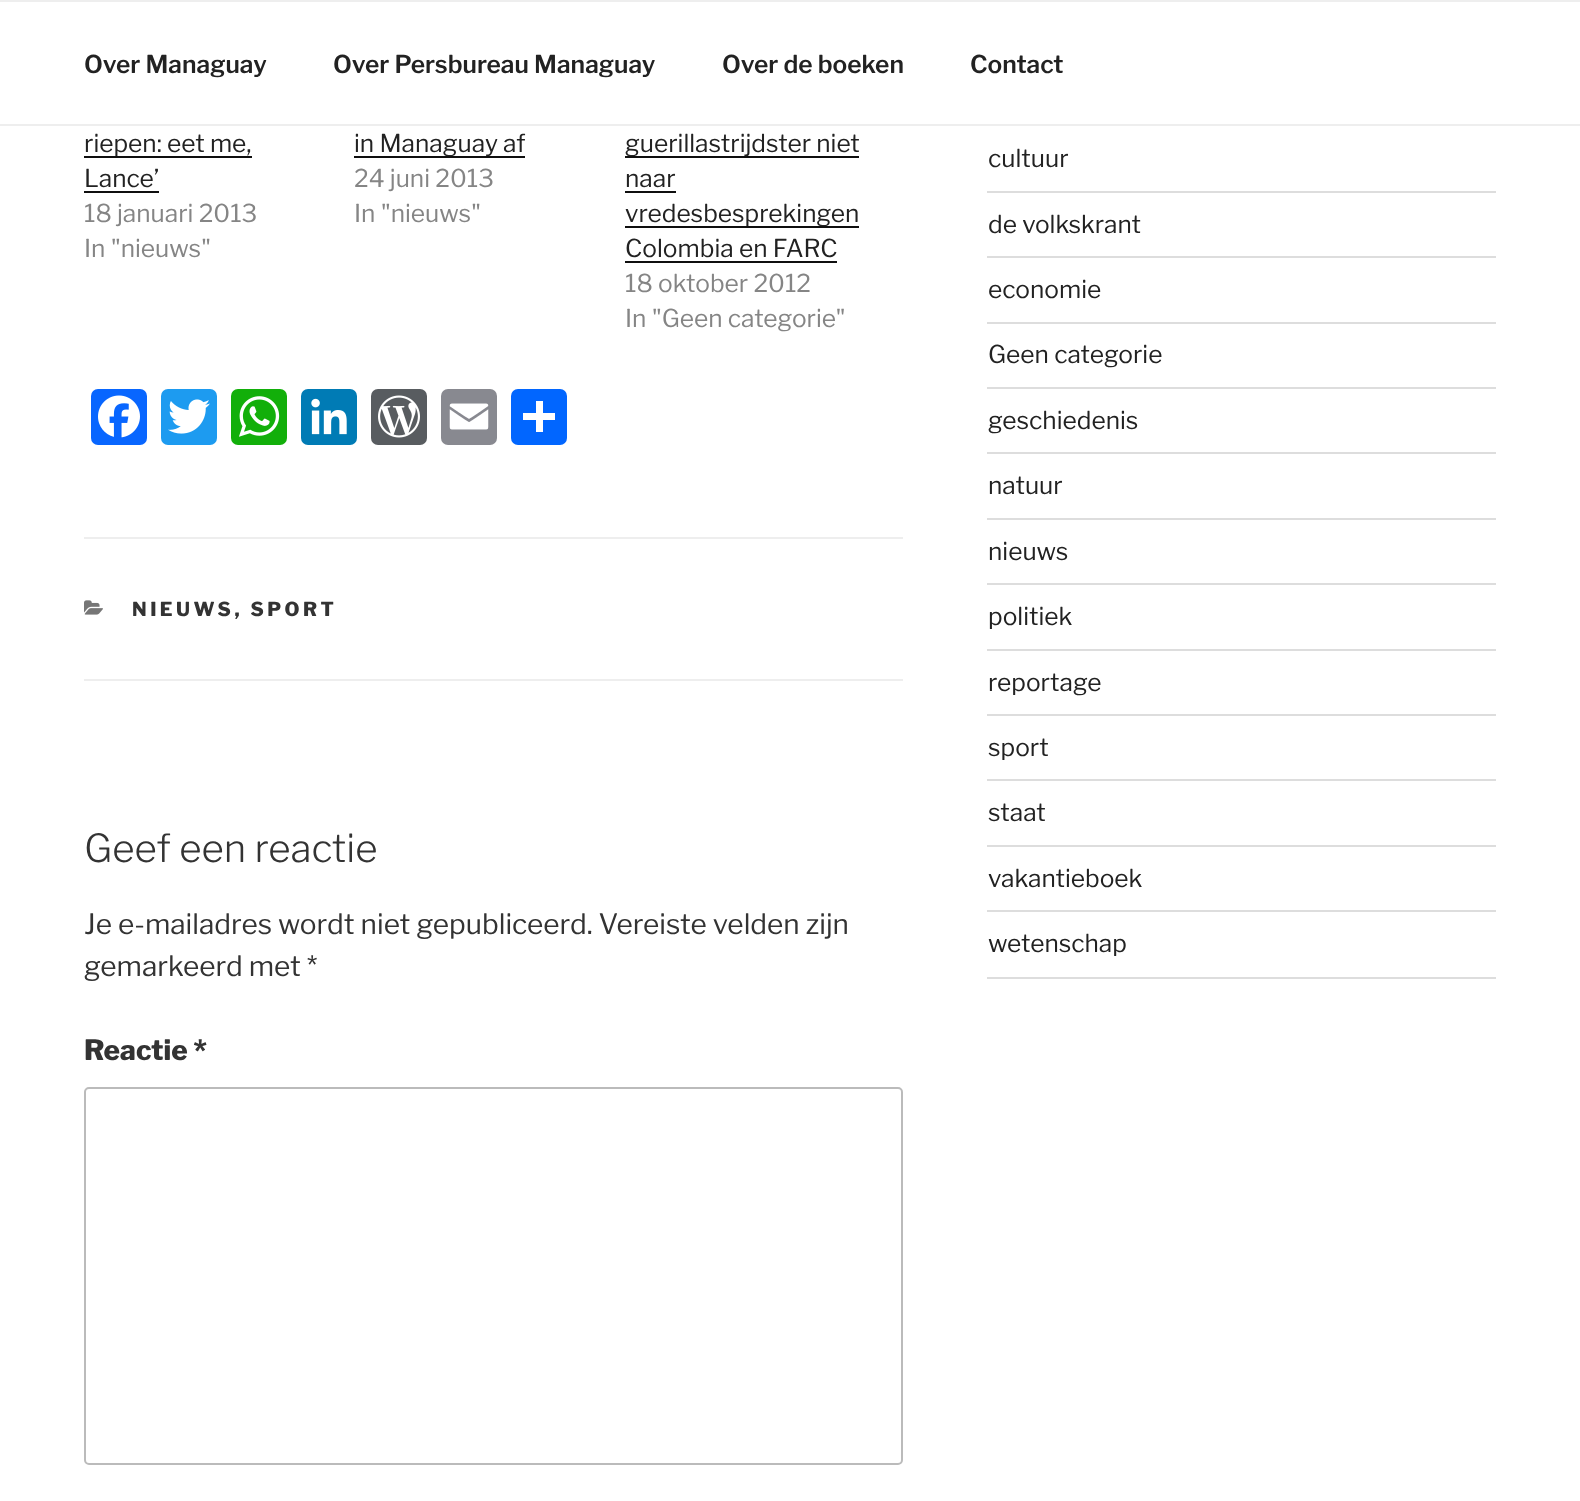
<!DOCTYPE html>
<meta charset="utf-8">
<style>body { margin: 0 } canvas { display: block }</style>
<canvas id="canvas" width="1580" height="1501"></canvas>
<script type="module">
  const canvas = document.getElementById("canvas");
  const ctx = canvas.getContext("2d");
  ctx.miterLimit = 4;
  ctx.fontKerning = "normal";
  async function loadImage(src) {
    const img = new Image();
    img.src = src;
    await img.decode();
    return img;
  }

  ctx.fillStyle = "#ffffff";
  ctx.fillRect(0, 0, 1580, 1501);
  ctx.fillStyle = "#eeeeee";
  ctx.fillRect(0, 0, 1580, 2);
  ctx.fillRect(0, 124, 1580, 2);
  ctx.font = "100 24.5px 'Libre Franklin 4'";
  ctx.fillStyle = "#222222";
  ctx.fillText("Over Managuay", 84, 73);
  ctx.fillText("Over Persbureau Managuay", 333, 73);
  ctx.fillText("Over de boeken", 722, 73);
  ctx.fillText("Contact", 970, 73);
  ctx.fillStyle = "#0f0f0f";
  ctx.fillRect(84, 156, 168, 2);
  ctx.font = "100 24.5px 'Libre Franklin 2'";
  ctx.fillStyle = "#222222";
  ctx.fillText("riepen: eet me,", 84, 152);
  ctx.fillText("Lance’", 84, 187);
  ctx.fillStyle = "#0f0f0f";
  ctx.fillRect(84, 191, 75, 2);
  ctx.fillStyle = "#858585";
  ctx.fillText("18 januari 2013", 84, 222);
  ctx.fillText("In \"nieuws\"", 84, 257);
  ctx.fillStyle = "#0f0f0f";
  ctx.fillRect(354, 156, 171, 2);
  ctx.fillStyle = "#222222";
  ctx.fillText("in Managuay af", 354, 152);
  ctx.fillStyle = "#858585";
  ctx.fillText("24 juni 2013", 354, 187);
  ctx.fillText("In \"nieuws\"", 354, 222);
  ctx.fillStyle = "#0f0f0f";
  ctx.fillRect(625, 156, 234, 2);
  ctx.fillStyle = "#222222";
  ctx.fillText("guerillastrijdster niet", 625, 152);
  ctx.fillText("naar", 625, 187);
  ctx.fillStyle = "#0f0f0f";
  ctx.fillRect(625, 191, 51, 2);
  ctx.fillRect(625, 226, 234, 2);
  ctx.fillStyle = "#222222";
  ctx.fillText("vredesbesprekingen", 625, 222);
  ctx.fillText("Colombia en FARC", 625, 257);
  ctx.fillStyle = "#0f0f0f";
  ctx.fillRect(625, 261, 212, 2);
  ctx.fillStyle = "#858585";
  ctx.fillText("18 oktober 2012", 625, 292);
  ctx.fillText("In \"Geen categorie\"", 625, 327);
  ctx.fillStyle = "#0866ff";
  ctx.beginPath();
  ctx.roundRect(91, 389, 56, 56, 7);
  ctx.fill();
  ctx.drawImage(await loadImage("img1.png"), 98, 395, 42, 43);
  ctx.fillStyle = "#1d9bf0";
  ctx.beginPath();
  ctx.roundRect(161, 389, 56, 56, 7);
  ctx.fill();
  ctx.drawImage(await loadImage("img2.png"), 168, 399, 42, 35);
  ctx.fillStyle = "#12af0a";
  ctx.beginPath();
  ctx.roundRect(231, 389, 56, 56, 7);
  ctx.fill();
  ctx.drawImage(await loadImage("img3.png"), 239, 396, 41, 41);
  ctx.fillStyle = "#007bb5";
  ctx.beginPath();
  ctx.roundRect(301, 389, 56, 56, 7);
  ctx.fill();
  ctx.drawImage(await loadImage("img4.png"), 311, 398, 36, 37);
  ctx.fillStyle = "#585c60";
  ctx.beginPath();
  ctx.roundRect(371, 389, 56, 56, 7);
  ctx.fill();
  ctx.drawImage(await loadImage("img5.png"), 378, 395, 42, 43);
  ctx.fillStyle = "#888990";
  ctx.beginPath();
  ctx.roundRect(441, 389, 56, 56, 7);
  ctx.fill();
  ctx.drawImage(await loadImage("img6.png"), 449, 403, 40, 27);
  ctx.fillStyle = "#0166ff";
  ctx.beginPath();
  ctx.roundRect(511, 389, 56, 56, 7);
  ctx.fill();
  ctx.fillStyle = "#ffffff";
  ctx.fillRect(536, 401, 7, 31);
  ctx.fillRect(523, 413, 32, 7);
  ctx.fillStyle = "#eeeeee";
  ctx.fillRect(84, 537, 819, 2);
  ctx.fillRect(84, 679, 819, 2);
  ctx.drawImage(await loadImage("img7.png"), 84, 600, 19, 15);
  ctx.letterSpacing = "3.5px";
  ctx.font = "100 19.25px 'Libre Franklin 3'";
  ctx.fillStyle = "#333333";
  ctx.fillText("NIEUWS, SPORT", 132, 616);
  ctx.letterSpacing = "0px";
  ctx.font = "100 38.5px Libre Franklin";
  ctx.fillText("Geef een reactie", 84, 862);
  ctx.font = "100 28px 'Libre Franklin 2'";
  ctx.fillText("Je e-mailadres wordt niet gepubliceerd. Vereiste velden zijn", 84, 934);
  ctx.fillText("gemarkeerd met *", 84, 976);
  ctx.font = "100 28px 'Libre Franklin 3'";
  ctx.fillText("Reactie *", 84, 1060);
  ctx.beginPath();
  ctx.roundRect(85, 1088, 817, 376, 4);
  ctx.strokeStyle = "#bbbbbb";
  ctx.lineWidth = 2;
  ctx.stroke();
  ctx.fillStyle = "#dddddd";
  ctx.fillRect(987, 191, 509, 2);
  ctx.font = "100 24.5px 'Libre Franklin 2'";
  ctx.fillStyle = "#222222";
  ctx.fillText("cultuur", 988, 167);
  ctx.fillStyle = "#dddddd";
  ctx.fillRect(987, 256, 509, 2);
  ctx.fillStyle = "#222222";
  ctx.fillText("de volkskrant", 988, 233);
  ctx.fillStyle = "#dddddd";
  ctx.fillRect(987, 322, 509, 2);
  ctx.fillStyle = "#222222";
  ctx.fillText("economie", 988, 298);
  ctx.fillStyle = "#dddddd";
  ctx.fillRect(987, 387, 509, 2);
  ctx.fillStyle = "#222222";
  ctx.fillText("Geen categorie", 988, 363);
  ctx.fillStyle = "#dddddd";
  ctx.fillRect(987, 452, 509, 2);
  ctx.fillStyle = "#222222";
  ctx.fillText("geschiedenis", 988, 429);
  ctx.fillStyle = "#dddddd";
  ctx.fillRect(987, 518, 509, 2);
  ctx.fillStyle = "#222222";
  ctx.fillText("natuur", 988, 494);
  ctx.fillStyle = "#dddddd";
  ctx.fillRect(987, 583, 509, 2);
  ctx.fillStyle = "#222222";
  ctx.fillText("nieuws", 988, 560);
  ctx.fillStyle = "#dddddd";
  ctx.fillRect(987, 649, 509, 2);
  ctx.fillStyle = "#222222";
  ctx.fillText("politiek", 988, 625);
  ctx.fillStyle = "#dddddd";
  ctx.fillRect(987, 714, 509, 2);
  ctx.fillStyle = "#222222";
  ctx.fillText("reportage", 988, 691);
  ctx.fillStyle = "#dddddd";
  ctx.fillRect(987, 779, 509, 2);
  ctx.fillStyle = "#222222";
  ctx.fillText("sport", 988, 756);
  ctx.fillStyle = "#dddddd";
  ctx.fillRect(987, 845, 509, 2);
  ctx.fillStyle = "#222222";
  ctx.fillText("staat", 988, 821);
  ctx.fillStyle = "#dddddd";
  ctx.fillRect(987, 910, 509, 2);
  ctx.fillStyle = "#222222";
  ctx.fillText("vakantieboek", 988, 887);
  ctx.fillStyle = "#dddddd";
  ctx.fillRect(987, 977, 509, 2);
  ctx.fillStyle = "#222222";
  ctx.fillText("wetenschap", 988, 952);
</script>
